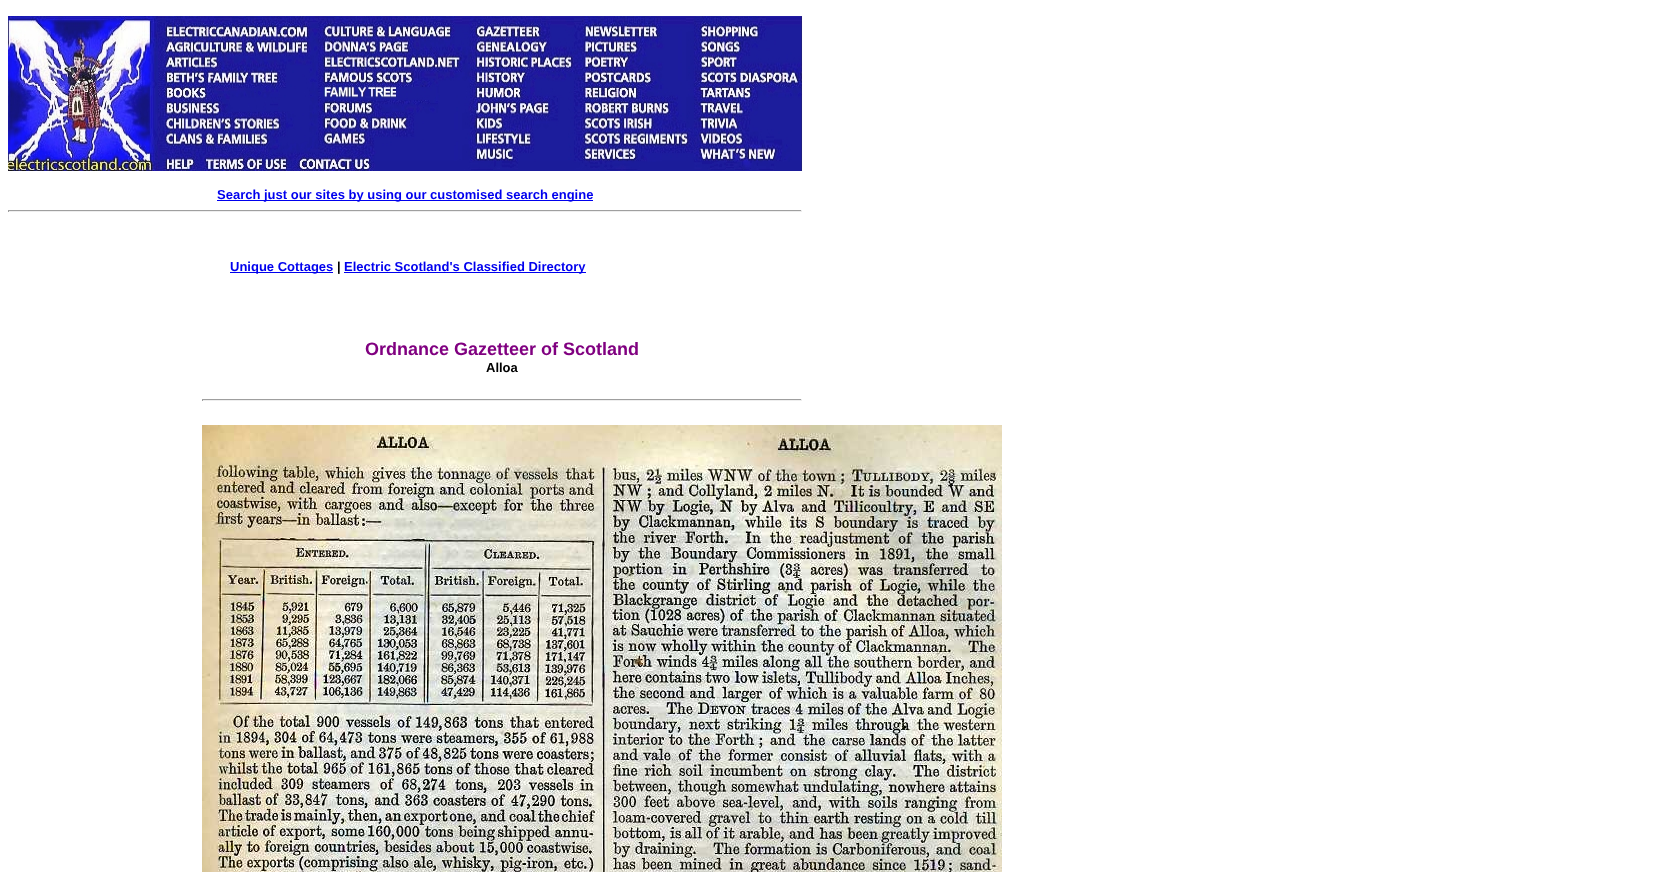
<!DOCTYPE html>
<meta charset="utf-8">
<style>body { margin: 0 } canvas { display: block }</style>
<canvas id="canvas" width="1653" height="872"></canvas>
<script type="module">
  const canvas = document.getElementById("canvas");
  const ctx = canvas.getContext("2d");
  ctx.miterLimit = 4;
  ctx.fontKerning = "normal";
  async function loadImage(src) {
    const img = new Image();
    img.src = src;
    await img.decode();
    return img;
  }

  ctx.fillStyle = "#ffffff";
  ctx.fillRect(0, 0, 1653, 872);
  ctx.drawImage(await loadImage("img1.png"), 8, 16, 795, 155);
  ctx.fillStyle = "#0000ee";
  ctx.fillRect(217, 200, 376, 1);
  ctx.font = "bold 13px Liberation Sans";
  ctx.fillText("Search just our sites by using our customised search engine", 217, 199);
  ctx.fillStyle = "#9f9f9f";
  ctx.fillRect(8, 210, 794, 1);
  ctx.fillStyle = "#eeeeee";
  ctx.fillRect(801, 210, 1, 2);
  ctx.fillRect(8, 211, 794, 1);
  ctx.fillStyle = "#9f9f9f";
  ctx.fillRect(8, 210, 1, 2);
  ctx.fillStyle = "#0000ee";
  ctx.fillRect(230, 272, 103, 1);
  ctx.fillText("Unique Cottages", 230, 271);
  ctx.fillStyle = "#000000";
  ctx.fillText("|", 337, 271);
  ctx.fillStyle = "#0000ee";
  ctx.fillRect(344, 272, 242, 1);
  ctx.fillText("Electric Scotland's Classified Directory", 344, 271);
  ctx.font = "bold 18px Liberation Sans";
  ctx.fillStyle = "#800080";
  ctx.fillText("Ordnance Gazetteer of Scotland", 365, 355);
  ctx.font = "bold 13px Liberation Sans";
  ctx.fillStyle = "#000000";
  ctx.fillText("Alloa", 486, 372);
  ctx.fillStyle = "#9f9f9f";
  ctx.fillRect(202, 399, 600, 1);
  ctx.fillStyle = "#eeeeee";
  ctx.fillRect(801, 399, 1, 2);
  ctx.fillRect(202, 400, 600, 1);
  ctx.fillStyle = "#9f9f9f";
  ctx.fillRect(202, 399, 1, 2);
  ctx.drawImage(await loadImage("img2.png"), 202, 425, 800, 447);
</script>
